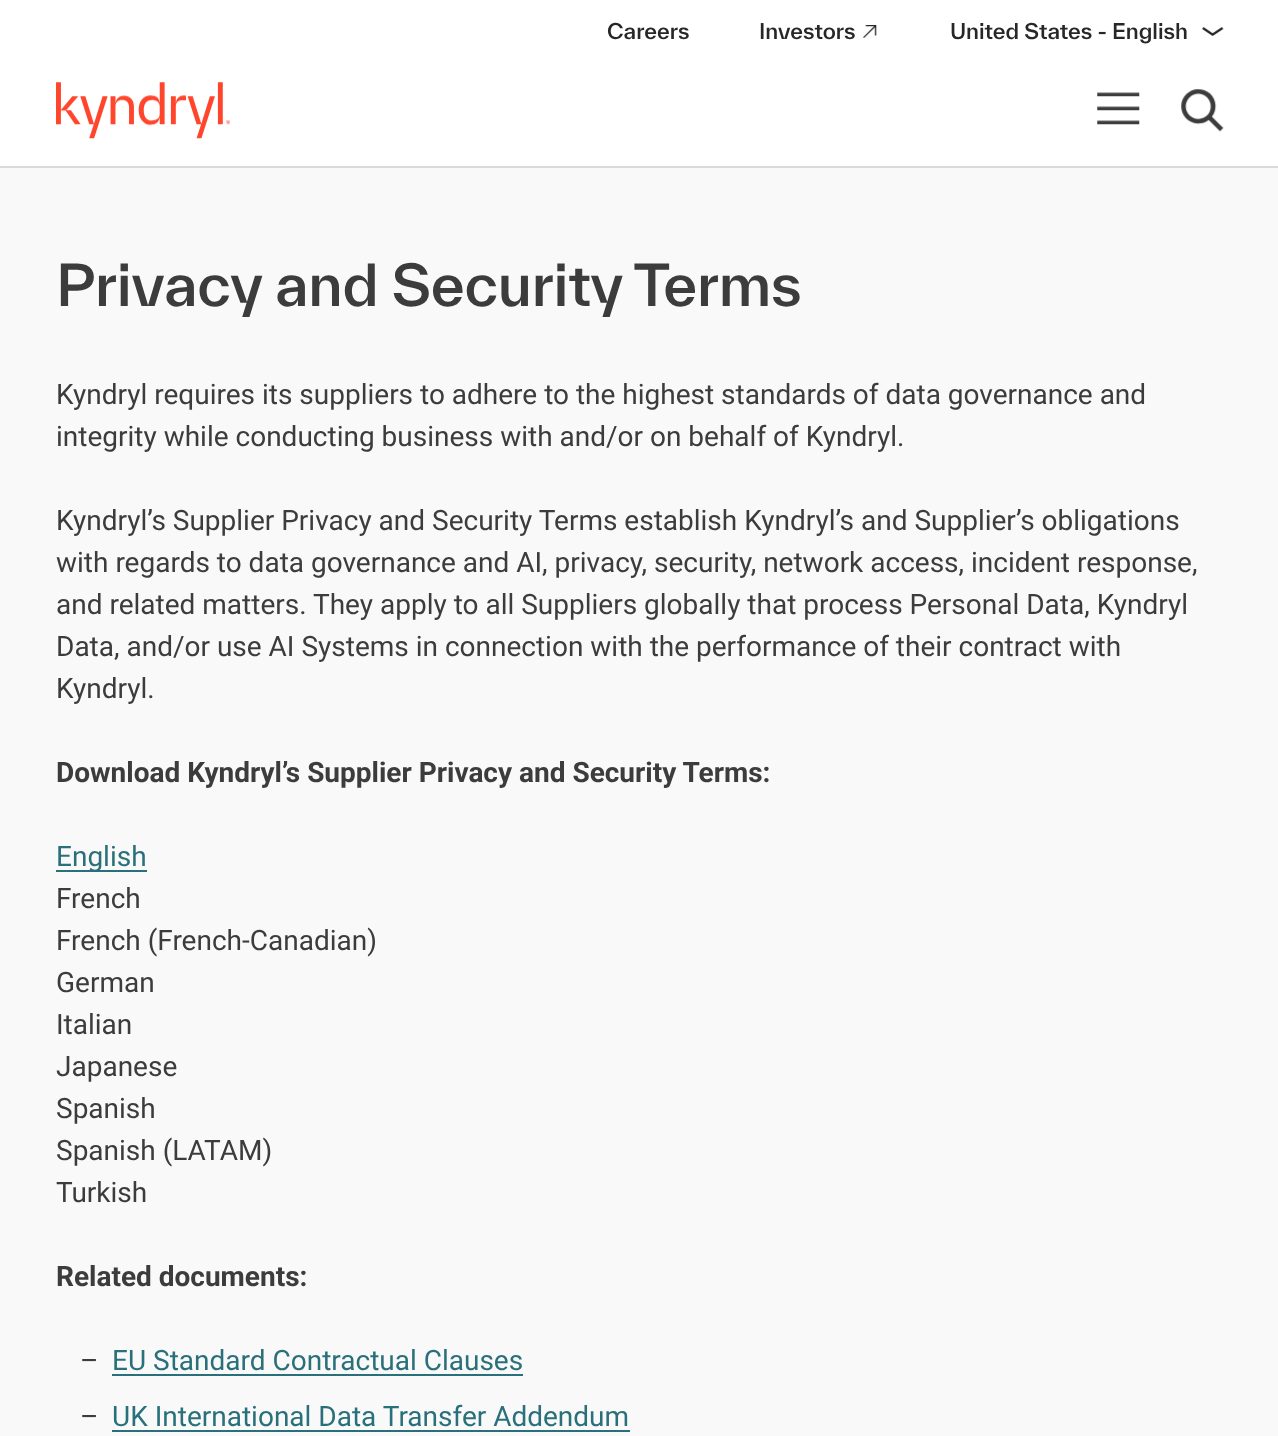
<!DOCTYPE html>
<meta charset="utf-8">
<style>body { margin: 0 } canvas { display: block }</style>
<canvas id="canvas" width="1278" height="1436"></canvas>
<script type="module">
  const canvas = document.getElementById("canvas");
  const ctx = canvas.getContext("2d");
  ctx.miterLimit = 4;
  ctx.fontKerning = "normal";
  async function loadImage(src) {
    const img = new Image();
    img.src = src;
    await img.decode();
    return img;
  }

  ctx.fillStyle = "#ffffff";
  ctx.fillRect(0, 0, 1278, 1436);
  ctx.fillStyle = "#dcdad8";
  ctx.fillRect(0, 166, 1278, 2);
  ctx.font = "500 21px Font";
  ctx.fillStyle = "#272727";
  ctx.fillText("Careers", 607, 39);
  ctx.fillText("Investors", 759, 39);
  ctx.drawImage(await loadImage("img1.png"), 863, 25, 14, 13);
  ctx.fillText("United States - English", 950, 39);
  ctx.drawImage(await loadImage("img2.png"), 1202, 27, 22, 9);
  ctx.drawImage(await loadImage("img3.png"), 56, 82, 174, 57);
  ctx.drawImage(await loadImage("img4.png"), 1097, 92, 43, 33);
  ctx.drawImage(await loadImage("img5.png"), 1181, 89, 43, 43);
  ctx.fillStyle = "#f9f9f9";
  ctx.fillRect(0, 168, 1278, 1268);
  ctx.letterSpacing = "-0.25px";
  ctx.font = "500 56px Font";
  ctx.fillStyle = "#3d3c3c";
  ctx.fillText("Privacy and Security Terms", 56, 306);
  ctx.letterSpacing = "0px";
  ctx.font = "28px Roboto";
  ctx.fillText("Kyndryl requires its suppliers to adhere to the highest standards of data governance and", 56, 404);
  ctx.fillText("integrity while conducting business with and/or on behalf of Kyndryl.", 56, 446);
  ctx.fillText("Kyndryl’s Supplier Privacy and Security Terms establish Kyndryl’s and Supplier’s obligations", 56, 530);
  ctx.fillText("with regards to data governance and AI, privacy, security, network access, incident response,", 56, 572);
  ctx.fillText("and related matters. They apply to all Suppliers globally that process Personal Data, Kyndryl", 56, 614);
  ctx.fillText("Data, and/or use AI Systems in connection with the performance of their contract with", 56, 656);
  ctx.fillText("Kyndryl.", 56, 698);
  ctx.font = "bold 28px Roboto";
  ctx.fillText("Download Kyndryl’s Supplier Privacy and Security Terms:", 56, 782);
  ctx.fillStyle = "#29707a";
  ctx.fillRect(56, 870, 91, 2);
  ctx.font = "28px Roboto";
  ctx.fillText("English", 56, 866);
  ctx.fillStyle = "#3d3c3c";
  ctx.fillText("French", 56, 908);
  ctx.fillText("French (French-Canadian)", 56, 950);
  ctx.fillText("German", 56, 992);
  ctx.fillText("Italian", 56, 1034);
  ctx.fillText("Japanese", 56, 1076);
  ctx.fillText("Spanish", 56, 1118);
  ctx.fillText("Spanish (LATAM)", 56, 1160);
  ctx.fillText("Turkish", 56, 1202);
  ctx.font = "bold 28px Roboto";
  ctx.fillText("Related documents:", 56, 1286);
  ctx.font = "28px Roboto";
  ctx.fillText("–", 80, 1370);
  ctx.fillStyle = "#29707a";
  ctx.fillText("EU Standard Contractual Clauses", 112, 1370);
  ctx.fillRect(112, 1374, 411, 2);
  ctx.fillStyle = "#3d3c3c";
  ctx.fillText("–", 80, 1426);
  ctx.fillStyle = "#29707a";
  ctx.fillText("UK International Data Transfer Addendum", 112, 1426);
  ctx.fillRect(112, 1430, 518, 2);
</script>
